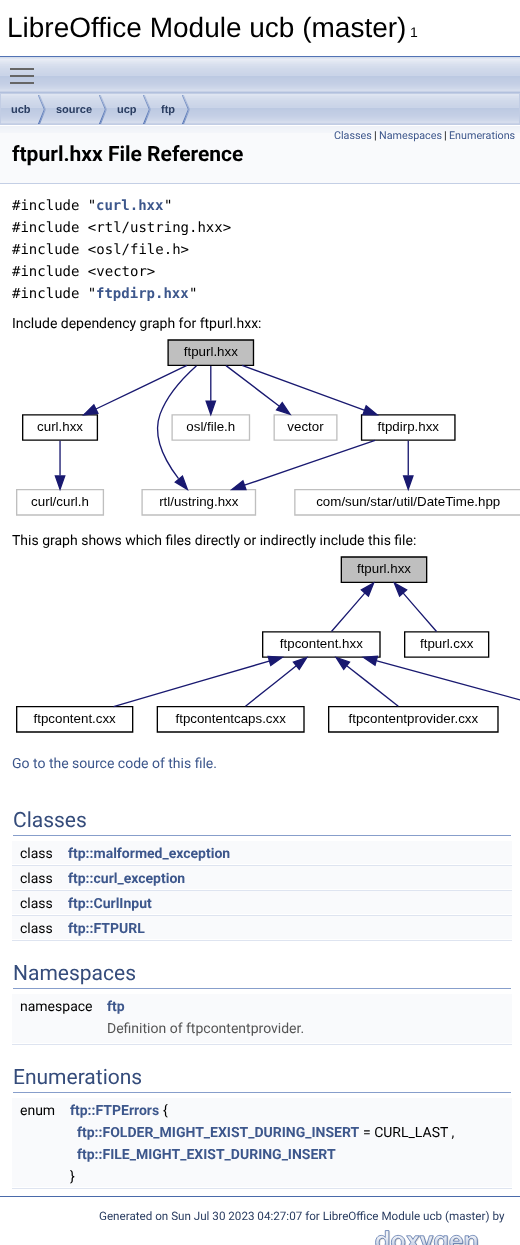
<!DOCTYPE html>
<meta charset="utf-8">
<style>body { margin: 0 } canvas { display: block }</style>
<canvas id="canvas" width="520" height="1245"></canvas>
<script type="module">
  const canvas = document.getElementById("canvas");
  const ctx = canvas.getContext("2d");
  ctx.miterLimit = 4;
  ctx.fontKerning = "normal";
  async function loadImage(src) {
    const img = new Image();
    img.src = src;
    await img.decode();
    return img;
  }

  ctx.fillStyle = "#ffffff";
  ctx.fillRect(0, 0, 520, 1245);
  ctx.fillStyle = "#5373b4";
  ctx.fillRect(0, 56, 520, 1);
  ctx.font = "28px Liberation Sans";
  ctx.fillStyle = "#000000";
  ctx.fillText("LibreOffice Module ucb (master)", 7, 37);
  ctx.font = "14px Liberation Sans";
  ctx.fillText("1", 410, 37);
  ctx.drawImage(await loadImage("img1.png"), 0, 57, 520, 36);
  ctx.fillStyle = "#666666";
  ctx.fillRect(10, 75, 24, 2);
  ctx.fillRect(10, 68, 24, 2);
  ctx.fillRect(10, 82, 24, 2);
  ctx.drawImage(await loadImage("img2.png"), 1, 94, 518, 30);
  ctx.strokeStyle = "#c2cde4";
  ctx.strokeRect(0.5, 93.5, 519, 31);
  ctx.drawImage(await loadImage("img3.png"), 38, 95, 8, 29);
  ctx.font = "bold 11px Liberation Sans";
  ctx.fillStyle = "#2a3d61";
  ctx.fillText("ucb", 11, 113);
  ctx.drawImage(await loadImage("img3.png"), 99, 95, 8, 29);
  ctx.fillText("source", 56, 113);
  ctx.drawImage(await loadImage("img3.png"), 143, 95, 8, 29);
  ctx.fillText("ucp", 117, 113);
  ctx.drawImage(await loadImage("img3.png"), 182, 95, 8, 29);
  ctx.fillText("ftp", 161, 113);
  ctx.fillStyle = "#f9fafc";
  ctx.fillRect(0, 133, 520, 50);
  ctx.drawImage(await loadImage("img4.png"), 0, 125, 520, 8);
  ctx.fillStyle = "#c4cfe5";
  ctx.fillRect(0, 183, 520, 1);
  ctx.font = "10.75px Roboto";
  ctx.fillStyle = "#3d578c";
  ctx.fillText("Classes", 334, 139);
  ctx.fillStyle = "#000000";
  ctx.fillText("|", 374, 139);
  ctx.fillStyle = "#3d578c";
  ctx.fillText("Namespaces", 379, 139);
  ctx.fillStyle = "#000000";
  ctx.fillText("|", 444, 139);
  ctx.fillStyle = "#3d578c";
  ctx.fillText("Enumerations", 449, 139);
  ctx.font = "bold 21px Roboto";
  ctx.fillStyle = "#000000";
  ctx.fillText("ftpurl.hxx File Reference", 12, 161);
  ctx.font = "14px DejaVu Sans Mono";
  ctx.fillText("#include \"", 12, 210);
  ctx.font = "bold 14px DejaVu Sans Mono";
  ctx.fillStyle = "#3d578c";
  ctx.fillText("curl.hxx", 96, 210);
  ctx.font = "14px DejaVu Sans Mono";
  ctx.fillStyle = "#000000";
  ctx.fillText("\"", 164, 210);
  ctx.fillText("#include <rtl/ustring.hxx>", 12, 232);
  ctx.fillText("#include <osl/file.h>", 12, 254);
  ctx.fillText("#include <vector>", 12, 276);
  ctx.fillText("#include \"", 12, 298);
  ctx.font = "bold 14px DejaVu Sans Mono";
  ctx.fillStyle = "#3d578c";
  ctx.fillText("ftpdirp.hxx", 96, 298);
  ctx.font = "14px DejaVu Sans Mono";
  ctx.fillStyle = "#000000";
  ctx.fillText("\"", 189, 298);
  ctx.font = "14px Roboto";
  ctx.fillText("Include dependency graph for ftpurl.hxx:", 12, 328);
  ctx.drawImage(await loadImage("img5.png"), 16, 339, 504, 177);
  ctx.fillText("This graph shows which files directly or indirectly include this file:", 12, 545);
  ctx.drawImage(await loadImage("img6.png"), 16, 556, 504, 177);
  ctx.fillStyle = "#3d578c";
  ctx.fillText("Go to the source code of this file.", 12, 768);
  ctx.fillStyle = "#879ecb";
  ctx.fillRect(13, 835, 498, 1);
  ctx.font = "21px Roboto";
  ctx.fillStyle = "#354c7b";
  ctx.fillText("Classes", 13, 827);
  ctx.fillStyle = "#f9fafc";
  ctx.fillRect(12, 841, 500, 23);
  ctx.font = "14px Roboto";
  ctx.fillStyle = "#000000";
  ctx.fillText("class", 20, 858);
  ctx.font = "bold 14px Roboto";
  ctx.fillStyle = "#3d578c";
  ctx.fillText("ftp::malformed_exception", 68, 858);
  ctx.fillStyle = "#dee4f0";
  ctx.fillRect(12, 865, 500, 1);
  ctx.fillStyle = "#f9fafc";
  ctx.fillRect(12, 866, 500, 23);
  ctx.font = "14px Roboto";
  ctx.fillStyle = "#000000";
  ctx.fillText("class", 20, 883);
  ctx.font = "bold 14px Roboto";
  ctx.fillStyle = "#3d578c";
  ctx.fillText("ftp::curl_exception", 68, 883);
  ctx.fillStyle = "#dee4f0";
  ctx.fillRect(12, 890, 500, 1);
  ctx.fillStyle = "#f9fafc";
  ctx.fillRect(12, 891, 500, 23);
  ctx.font = "14px Roboto";
  ctx.fillStyle = "#000000";
  ctx.fillText("class", 20, 908);
  ctx.font = "bold 14px Roboto";
  ctx.fillStyle = "#3d578c";
  ctx.fillText("ftp::CurlInput", 68, 908);
  ctx.fillStyle = "#dee4f0";
  ctx.fillRect(12, 915, 500, 1);
  ctx.fillStyle = "#f9fafc";
  ctx.fillRect(12, 916, 500, 23);
  ctx.font = "14px Roboto";
  ctx.fillStyle = "#000000";
  ctx.fillText("class", 20, 933);
  ctx.font = "bold 14px Roboto";
  ctx.fillStyle = "#3d578c";
  ctx.fillText("ftp::FTPURL", 68, 933);
  ctx.fillStyle = "#dee4f0";
  ctx.fillRect(12, 940, 500, 1);
  ctx.fillStyle = "#879ecb";
  ctx.fillRect(13, 988, 498, 1);
  ctx.font = "21px Roboto";
  ctx.fillStyle = "#354c7b";
  ctx.fillText("Namespaces", 13, 980);
  ctx.fillStyle = "#f9fafc";
  ctx.fillRect(12, 994, 500, 23);
  ctx.font = "14px Roboto";
  ctx.fillStyle = "#000000";
  ctx.fillText("namespace", 20, 1011);
  ctx.font = "bold 14px Roboto";
  ctx.fillStyle = "#3d578c";
  ctx.fillText("ftp", 107, 1011);
  ctx.fillStyle = "#f9fafc";
  ctx.fillRect(12, 1017, 500, 26);
  ctx.font = "14px Roboto";
  ctx.fillStyle = "#555555";
  ctx.fillText("Definition of ftpcontentprovider.", 107, 1033);
  ctx.fillStyle = "#dee4f0";
  ctx.fillRect(12, 1044, 500, 1);
  ctx.fillStyle = "#879ecb";
  ctx.fillRect(13, 1092, 498, 1);
  ctx.font = "21px Roboto";
  ctx.fillStyle = "#354c7b";
  ctx.fillText("Enumerations", 13, 1084);
  ctx.fillStyle = "#f9fafc";
  ctx.fillRect(12, 1098, 500, 89);
  ctx.font = "14px Roboto";
  ctx.fillStyle = "#000000";
  ctx.fillText("enum", 20, 1115);
  ctx.font = "bold 14px Roboto";
  ctx.fillStyle = "#3d578c";
  ctx.fillText("ftp::FTPErrors", 70, 1115);
  ctx.font = "14px Roboto";
  ctx.fillStyle = "#000000";
  ctx.fillText("{", 163, 1115);
  ctx.font = "bold 14px Roboto";
  ctx.fillStyle = "#3d578c";
  ctx.fillText("ftp::FOLDER_MIGHT_EXIST_DURING_INSERT", 77, 1137);
  ctx.font = "14px Roboto";
  ctx.fillStyle = "#000000";
  ctx.fillText("= CURL_LAST ,", 363, 1137);
  ctx.font = "bold 14px Roboto";
  ctx.fillStyle = "#3d578c";
  ctx.fillText("ftp::FILE_MIGHT_EXIST_DURING_INSERT", 77, 1159);
  ctx.font = "14px Roboto";
  ctx.fillStyle = "#000000";
  ctx.fillText("}", 70, 1181);
  ctx.fillStyle = "#dee4f0";
  ctx.fillRect(12, 1188, 500, 1);
  ctx.fillStyle = "#4a6aaa";
  ctx.fillRect(0, 1196, 520, 1);
  ctx.font = "11.65px Roboto";
  ctx.fillStyle = "#2a3d61";
  ctx.fillText("Generated on Sun Jul 30 2023 04:27:07 for LibreOffice Module ucb (master) by", 99, 1220);
  ctx.drawImage(await loadImage("img7.png"), 375, 1230, 104, 15);
</script>
